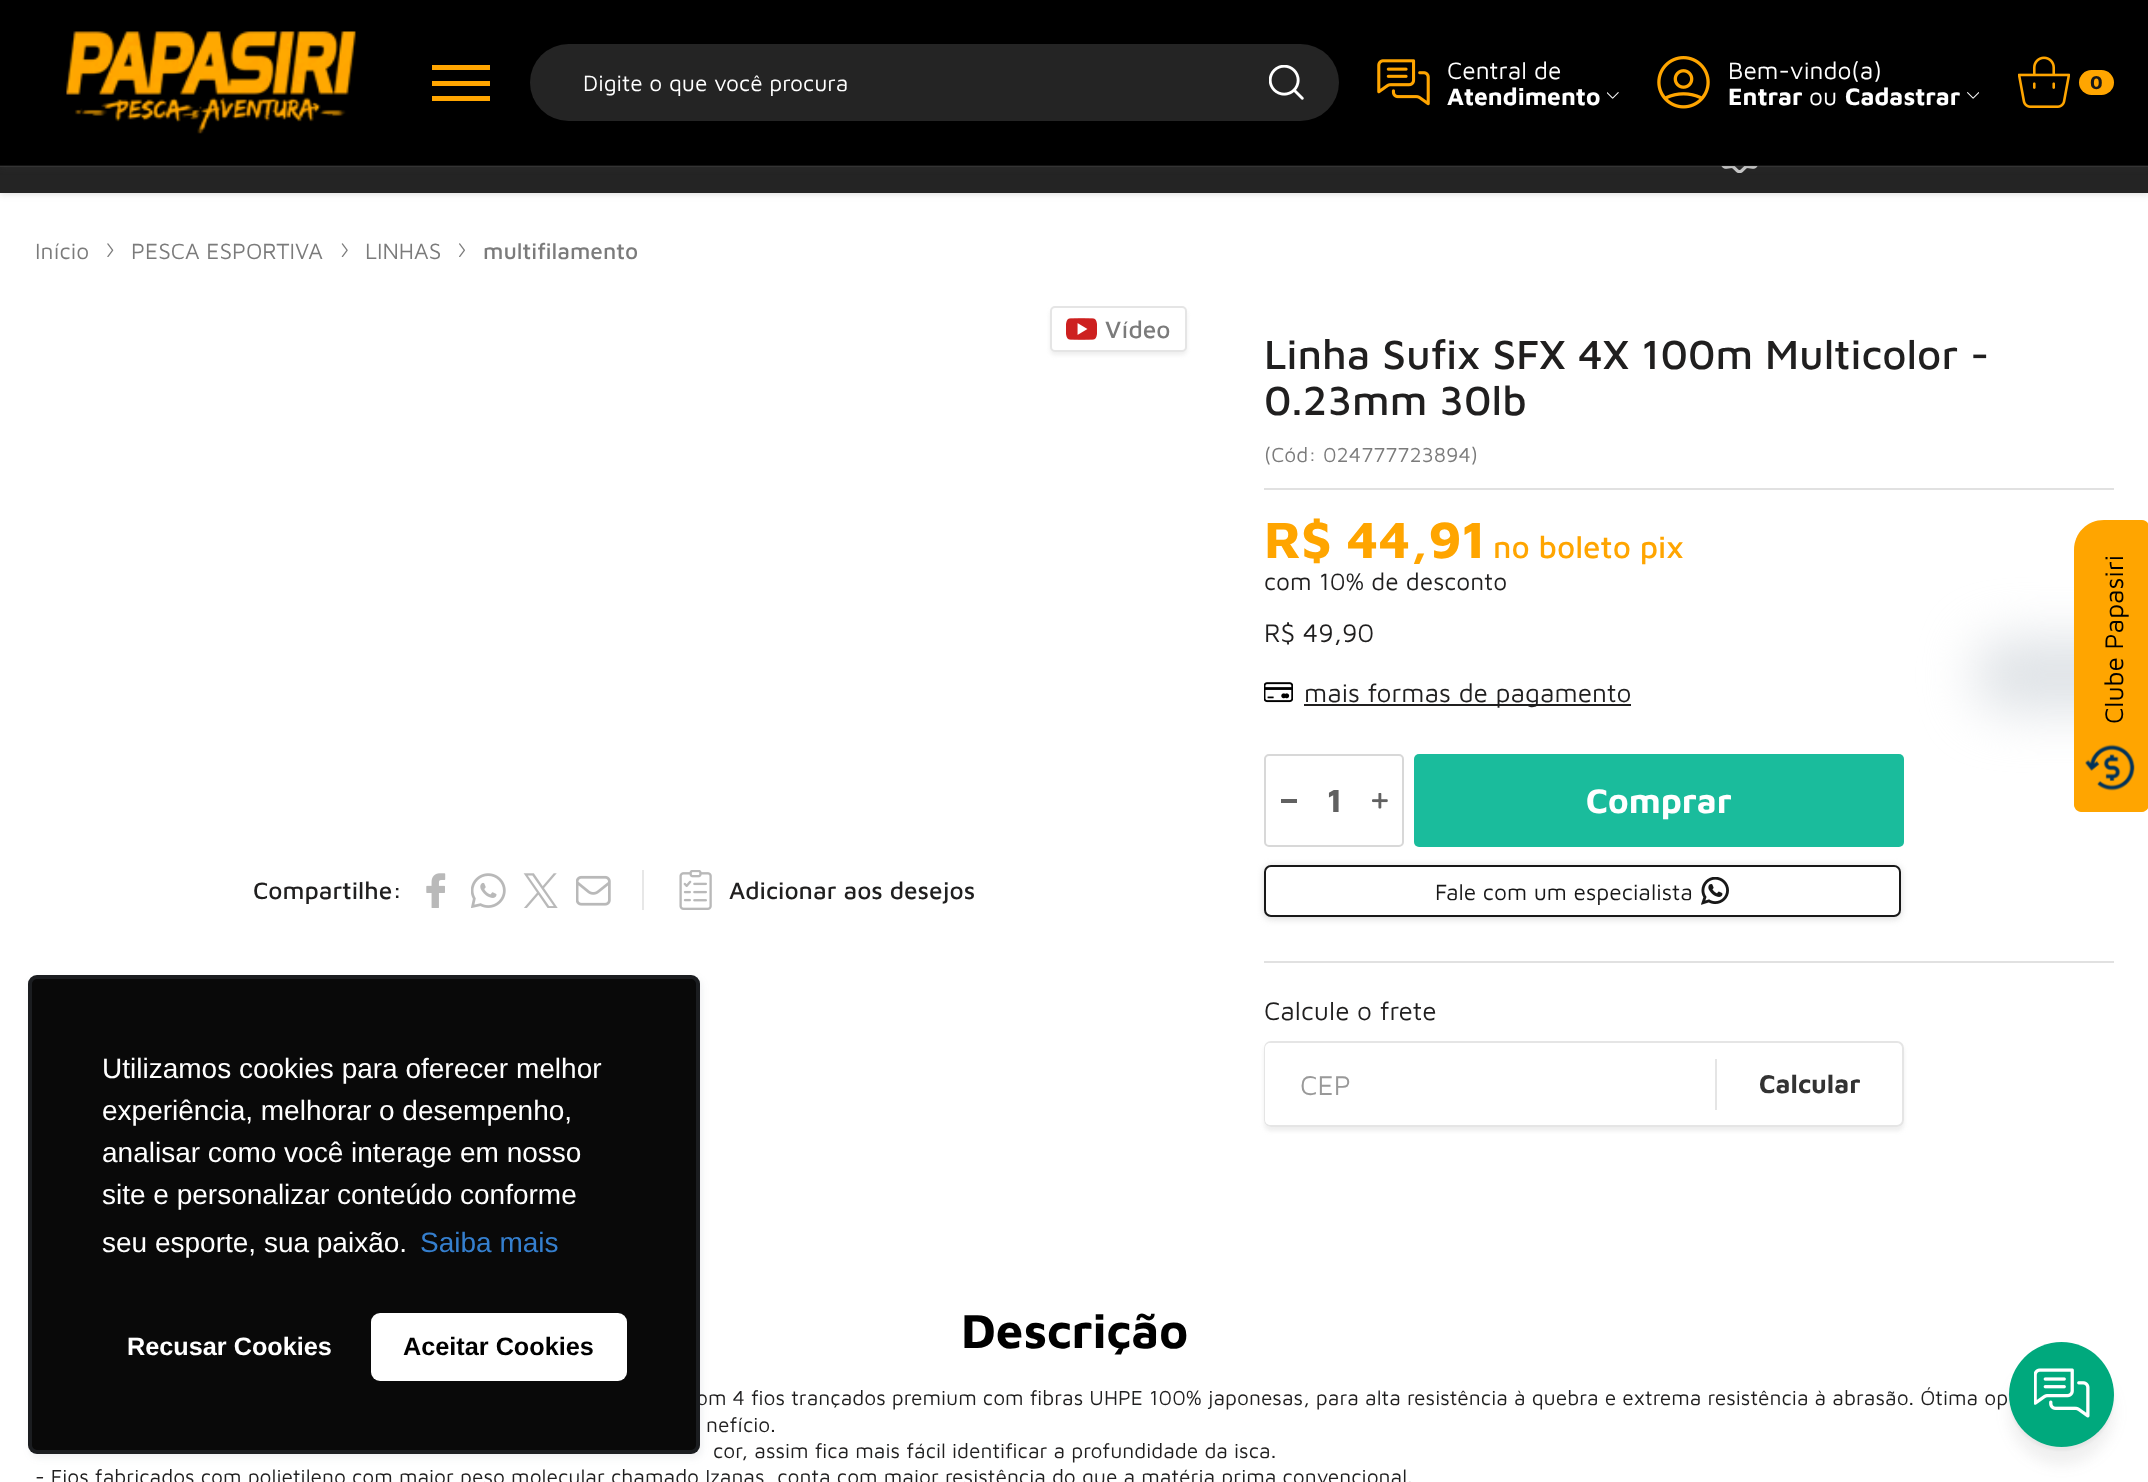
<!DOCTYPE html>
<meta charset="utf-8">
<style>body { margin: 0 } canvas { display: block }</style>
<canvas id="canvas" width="2148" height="1482"></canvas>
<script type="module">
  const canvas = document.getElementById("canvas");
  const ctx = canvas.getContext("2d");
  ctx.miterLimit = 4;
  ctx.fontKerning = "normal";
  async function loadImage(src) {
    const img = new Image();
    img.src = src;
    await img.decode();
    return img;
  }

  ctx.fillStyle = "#ffffff";
  ctx.fillRect(0, 0, 2148, 1482);
  ctx.fillStyle = "rgba(82, 82, 82, 0.2)";
  ctx.filter = "blur(3.5px)";
  ctx.beginPath();
  ctx.rect(0, 98, 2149, 96);
  ctx.fill();
  ctx.filter = "none";
  ctx.fillStyle = "#242424";
  ctx.fillRect(0, 166, 2148, 27);
  ctx.drawImage(await loadImage("img8.png"), 1721, 166, 37, 7);
  ctx.fillStyle = "rgba(82, 82, 82, 0.13)";
  ctx.filter = "blur(3.5px)";
  ctx.beginPath();
  ctx.rect(0, 2, 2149, 166);
  ctx.fill();
  ctx.filter = "none";
  ctx.fillStyle = "#000000";
  ctx.fillRect(0, 0, 2148, 166);
  ctx.fillStyle = "rgba(144, 144, 144, 0.13)";
  ctx.fillRect(0, 165, 2148, 2);
  ctx.drawImage(await loadImage("img1.png"), 66, 31, 290, 103);
  ctx.fillStyle = "#ffa500";
  ctx.fillRect(432, 96, 58, 5);
  ctx.fillRect(432, 65, 58, 5);
  ctx.fillRect(432, 81, 58, 5);
  ctx.fillStyle = "#242424";
  ctx.beginPath();
  ctx.roundRect(530, 44, 809, 77, 38.5);
  ctx.fill();
  ctx.font = "22.75px Maven Pro";
  ctx.fillStyle = "#ffffff";
  ctx.fillText("Digite o que você procura", 583, 91);
  ctx.drawImage(await loadImage("img2.png"), 1269, 65, 35, 35);
  ctx.drawImage(await loadImage("img3.png"), 1377, 59, 53, 47);
  ctx.font = "24.5px Maven Pro";
  ctx.fillText("Central de", 1447, 79);
  ctx.font = "bold 24.5px Maven Pro";
  ctx.fillText("Atendimento", 1447, 105);
  ctx.drawImage(await loadImage("img4.png"), 1607, 92, 12, 7);
  ctx.drawImage(await loadImage("img5.png"), 1657, 56, 53, 53);
  ctx.font = "24.5px Maven Pro";
  ctx.fillText("Bem-vindo(a)", 1728, 79);
  ctx.font = "bold 24.5px Maven Pro";
  ctx.fillText("Entrar", 1728, 105);
  ctx.font = "24.5px Maven Pro";
  ctx.fillText("ou", 1809, 105);
  ctx.font = "bold 24.5px Maven Pro";
  ctx.fillText("Cadastrar", 1845, 105);
  ctx.drawImage(await loadImage("img6.png"), 1967, 92, 12, 7);
  ctx.drawImage(await loadImage("img7.png"), 2018, 56, 52, 52);
  ctx.fillStyle = "#ffa500";
  ctx.beginPath();
  ctx.roundRect(2079, 70, 35, 25, 12.5);
  ctx.fill();
  ctx.font = "bold 19px Maven Pro";
  ctx.fillStyle = "#181818";
  ctx.fillText("0", 2090, 89);
  ctx.font = "22.75px Maven Pro";
  ctx.fillStyle = "#7b7b7b";
  ctx.fillText("Início", 35, 259);
  ctx.drawImage(await loadImage("img9.png"), 107, 243, 7, 14);
  ctx.fillText("PESCA ESPORTIVA", 131, 259);
  ctx.drawImage(await loadImage("img10.png"), 341, 243, 7, 14);
  ctx.fillText("LINHAS", 365, 259);
  ctx.drawImage(await loadImage("img11.png"), 459, 243, 6, 14);
  ctx.font = "500 22.75px Maven Pro";
  ctx.fillText("multifilamento", 483, 259);
  ctx.fillStyle = "rgba(205, 205, 205, 0.35)";
  ctx.filter = "blur(2px)";
  ctx.beginPath();
  ctx.roundRect(1050, 310, 137, 45, 5);
  ctx.fill();
  ctx.filter = "none";
  ctx.fillStyle = "#ffffff";
  ctx.beginPath();
  ctx.roundRect(1051, 307, 135, 44, 4);
  ctx.fill();
  ctx.strokeStyle = "#e5e5e5";
  ctx.lineWidth = 2;
  ctx.stroke();
  ctx.drawImage(await loadImage("img12.png"), 1066, 318, 31, 22);
  ctx.font = "500 24.5px Maven Pro";
  ctx.fillStyle = "#7b7b7b";
  ctx.fillText("Vídeo", 1105, 338);
  ctx.fillStyle = "#201f1f";
  ctx.fillText("Compartilhe:", 253, 899);
  ctx.drawImage(await loadImage("img13.png"), 426, 873, 20, 35);
  ctx.drawImage(await loadImage("img14.png"), 471, 873, 35, 35);
  ctx.drawImage(await loadImage("img15.png"), 523, 873, 35, 35);
  ctx.drawImage(await loadImage("img16.png"), 576, 875, 35, 31);
  ctx.fillStyle = "#e7e7e7";
  ctx.fillRect(642, 870, 2, 40);
  ctx.drawImage(await loadImage("img17.png"), 679, 870, 33, 40);
  ctx.fillStyle = "#201f1f";
  ctx.fillText("Adicionar aos desejos", 729, 899);
  ctx.fillStyle = "#e1e1e1";
  ctx.fillRect(1264, 488, 850, 2);
  ctx.font = "500 42px Maven Pro";
  ctx.fillStyle = "#201f1f";
  ctx.fillText("Linha Sufix SFX 4X 100m Multicolor -", 1264, 369);
  ctx.fillText("0.23mm 30lb", 1264, 415);
  ctx.font = "21px Maven Pro";
  ctx.fillStyle = "#7b7b7b";
  ctx.fillText("(Cód:", 1264, 462);
  ctx.fillText("024777723894)", 1323, 462);
  ctx.font = "bold 52.5px Maven Pro";
  ctx.fillStyle = "#ffa500";
  ctx.fillText("R$ 44,91", 1264, 558);
  ctx.font = "500 31.5px Maven Pro";
  ctx.fillText("no boleto pix", 1493, 558);
  ctx.font = "24.5px Maven Pro";
  ctx.fillStyle = "#201f1f";
  ctx.fillText("com 10% de desconto", 1264, 590);
  ctx.font = "26.25px Maven Pro";
  ctx.fillText("R$ 49,90", 1264, 642);
  ctx.drawImage(await loadImage("img18.png"), 1264, 682, 29, 21);
  ctx.fillRect(1304, 704, 327, 2);
  ctx.fillText("mais formas de pagamento", 1304, 702);
  ctx.beginPath();
  ctx.roundRect(1265, 755, 138, 91, 4);
  ctx.strokeStyle = "#d8d8d8";
  ctx.stroke();
  ctx.fillStyle = "#616161";
  ctx.fillRect(1281, 799, 16, 4);
  ctx.font = "bold 33px Maven Pro";
  ctx.fillText("1", 1327, 812);
  ctx.drawImage(await loadImage("img19.png"), 1372, 793, 16, 16);
  ctx.fillStyle = "#1abc9c";
  ctx.beginPath();
  ctx.roundRect(1414, 754, 490, 93, 5);
  ctx.fill();
  ctx.font = "bold 35px Maven Pro";
  ctx.fillStyle = "#ffffff";
  ctx.fillText("Comprar", 1586, 813);
  ctx.fillStyle = "rgba(177, 177, 177, 0.46)";
  ctx.filter = "blur(3.5px)";
  ctx.beginPath();
  ctx.roundRect(1264, 866, 637, 53, 7);
  ctx.fill();
  ctx.filter = "none";
  ctx.fillStyle = "#ffffff";
  ctx.beginPath();
  ctx.roundRect(1265, 866, 635, 50, 6);
  ctx.fill();
  ctx.strokeStyle = "#181818";
  ctx.stroke();
  ctx.font = "22.75px Maven Pro";
  ctx.fillStyle = "#181818";
  ctx.fillText("Fale com um especialista", 1435, 900);
  ctx.drawImage(await loadImage("img20.png"), 1701, 877, 28, 28);
  ctx.fillStyle = "#e1e1e1";
  ctx.fillRect(1264, 961, 850, 2);
  ctx.font = "26.25px Maven Pro";
  ctx.fillStyle = "#201f1f";
  ctx.fillText("Calcule o frete", 1264, 1020);
  ctx.save();
  ctx.beginPath();
  ctx.moveTo(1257, 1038);
  ctx.lineTo(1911, 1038);
  ctx.lineTo(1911, 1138);
  ctx.lineTo(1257, 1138);
  ctx.closePath();
  ctx.moveTo(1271, 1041);
  ctx.lineTo(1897, 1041);
  ctx.bezierCurveTo(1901, 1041, 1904, 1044, 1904, 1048);
  ctx.lineTo(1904, 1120);
  ctx.bezierCurveTo(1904, 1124, 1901, 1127, 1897, 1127);
  ctx.lineTo(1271, 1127);
  ctx.bezierCurveTo(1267, 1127, 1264, 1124, 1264, 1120);
  ctx.lineTo(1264, 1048);
  ctx.bezierCurveTo(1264, 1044, 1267, 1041, 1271, 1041);
  ctx.closePath();
  ctx.clip("evenodd");
  ctx.fillStyle = "rgba(205, 205, 205, 0.35)";
  ctx.filter = "blur(2px)";
  ctx.beginPath();
  ctx.roundRect(1264, 1045, 640, 86, 7);
  ctx.fill();
  ctx.filter = "none";
  ctx.restore();
  ctx.beginPath();
  ctx.roundRect(1265, 1042, 638, 84, 6);
  ctx.strokeStyle = "#e5e5e5";
  ctx.stroke();
  ctx.fillStyle = "#ffffff";
  ctx.beginPath();
  ctx.roundRect(1265, 1043, 450, 82, 5);
  ctx.fill();
  ctx.font = "28px Maven Pro";
  ctx.fillStyle = "#999999";
  ctx.fillText("CEP", 1300, 1095);
  ctx.fillStyle = "#e5e5e5";
  ctx.fillRect(1715, 1059, 2, 51);
  ctx.font = "bold 26.25px Maven Pro";
  ctx.fillStyle = "#333333";
  ctx.fillText("Calcular", 1759, 1093);
  ctx.font = "bold 49px Maven Pro";
  ctx.fillStyle = "#000000";
  ctx.fillText("Descrição", 961, 1348);
  ctx.font = "21px Maven Pro";
  ctx.fillStyle = "#201f1f";
  ctx.fillText("om 4 fios trançados premium com fibras UHPE 100% japonesas, para alta resistência à quebra e extrema resistência à abrasão. Ótima op", 696, 1405);
  ctx.fillText("nefício.", 706, 1432);
  ctx.fillText("cor, assim fica mais fácil identificar a profundidade da isca.", 713, 1458);
  ctx.fillText("- Fios fabricados com polietileno com maior peso molecular chamado Izanas, conta com maior resistência do que a matéria prima convencional.", 35, 1484);
  ctx.fillStyle = "#dee2e6";
  ctx.filter = "blur(26px)";
  ctx.beginPath();
  ctx.roundRect(1976, 639, 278, 72, 28);
  ctx.fill();
  ctx.filter = "none";
  ctx.fillStyle = "#ffa500";
  ctx.beginPath();
  ctx.moveTo(2074, 805);
  ctx.lineTo(2074, 550);
  ctx.bezierCurveTo(2074, 533, 2087, 520, 2104, 520);
  ctx.lineTo(2142, 520);
  ctx.bezierCurveTo(2146, 520, 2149, 523, 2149, 527);
  ctx.lineTo(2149, 805);
  ctx.bezierCurveTo(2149, 808, 2146, 812, 2142, 812);
  ctx.lineTo(2081, 812);
  ctx.bezierCurveTo(2077, 812, 2074, 808, 2074, 805);
  ctx.closePath();
  ctx.fill();
  ctx.font = "26.25px Maven Pro";
  ctx.fillStyle = "#000000";
  ctx.save();
  ctx.translate(2123, 724);
  ctx.rotate(-90 * Math.PI / 180);
  ctx.fillText("Clube Papasiri", 0, 0);
  ctx.restore();
  ctx.drawImage(await loadImage("img21.png"), 2085, 744, 50, 47);
  ctx.fillStyle = "rgba(99, 110, 124, 0.1)";
  ctx.filter = "blur(3.5px)";
  ctx.beginPath();
  ctx.roundRect(30, 978, 672, 480, 9);
  ctx.fill();
  ctx.filter = "none";
  ctx.fillStyle = "#090909";
  ctx.beginPath();
  ctx.roundRect(28, 975, 672, 479, 9);
  ctx.fill();
  ctx.beginPath();
  ctx.roundRect(30, 977, 668, 475, 7);
  ctx.strokeStyle = "rgba(99, 110, 124, 0.2)";
  ctx.lineWidth = 4;
  ctx.stroke();
  ctx.font = "28px Liberation Sans";
  ctx.fillStyle = "#ffffff";
  ctx.fillText("Utilizamos cookies para oferecer melhor", 102, 1078);
  ctx.fillText("experiência, melhorar o desempenho,", 102, 1120);
  ctx.fillText("analisar como você interage em nosso", 102, 1162);
  ctx.fillText("site e personalizar conteúdo conforme", 102, 1204);
  ctx.fillText("seu esporte, sua paixão.", 102, 1252);
  ctx.fillStyle = "#357fce";
  ctx.fillText("Saiba mais", 420, 1252);
  ctx.font = "bold 25.25px Liberation Sans";
  ctx.fillStyle = "#ffffff";
  ctx.fillText("Recusar Cookies", 127, 1355);
  ctx.beginPath();
  ctx.roundRect(371, 1313, 256, 68, 9);
  ctx.fill();
  ctx.fillStyle = "#000000";
  ctx.fillText("Aceitar Cookies", 403, 1355);
  ctx.fillStyle = "rgba(103, 103, 103, 0.1)";
  ctx.filter = "blur(7px)";
  ctx.beginPath();
  ctx.roundRect(2009, 1360, 105, 105, 52.5);
  ctx.fill();
  ctx.filter = "none";
  ctx.fillStyle = "rgba(0, 0, 0, 0.04)";
  ctx.filter = "blur(1px)";
  ctx.beginPath();
  ctx.roundRect(2009, 1346, 105, 105, 52.5);
  ctx.fill();
  ctx.filter = "none";
  ctx.fillStyle = "#00a97d";
  ctx.beginPath();
  ctx.arc(2061.5, 1394.5, 52.5, 0, Math.PI * 2);
  ctx.fill();
  ctx.drawImage(await loadImage("img22.png"), 2034, 1368, 56, 50);
</script>
